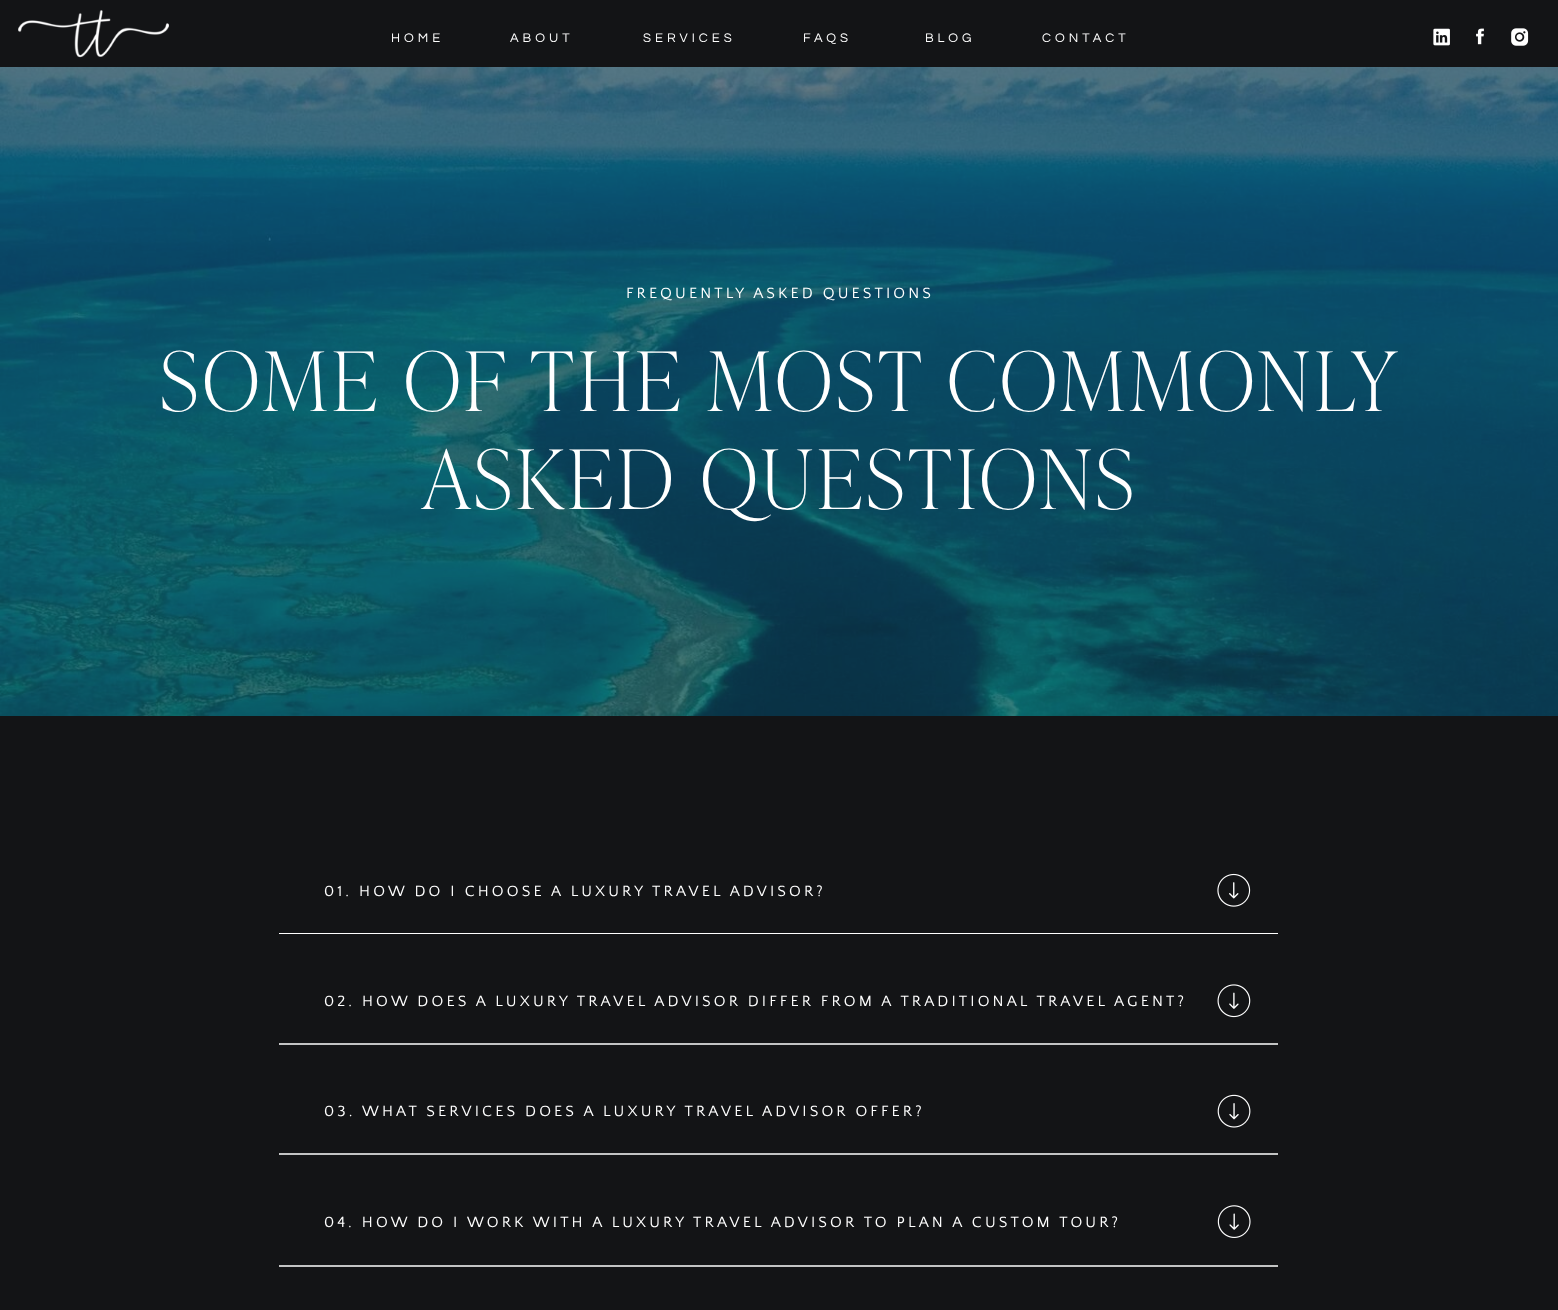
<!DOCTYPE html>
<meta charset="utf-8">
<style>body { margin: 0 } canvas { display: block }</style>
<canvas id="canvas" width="1558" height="1310"></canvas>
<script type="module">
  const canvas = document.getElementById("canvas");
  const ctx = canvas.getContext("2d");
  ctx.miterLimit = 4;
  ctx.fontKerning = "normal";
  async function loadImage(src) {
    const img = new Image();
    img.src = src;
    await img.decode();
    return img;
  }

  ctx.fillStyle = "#131416";
  ctx.fillRect(0, 0, 1558, 1310);
  ctx.drawImage(await loadImage("img1.png"), 18, 10, 151, 48);
  ctx.letterSpacing = "4px";
  ctx.font = "13px Questrial";
  ctx.fillStyle = "#ffffff";
  ctx.fillText("HOME", 391, 42);
  ctx.fillText("ABOUT", 510, 42);
  ctx.fillText("SERVICES", 643, 42);
  ctx.fillText("FAQS", 803, 42);
  ctx.fillText("BLOG", 925, 42);
  ctx.fillText("CONTACT", 1042, 42);
  ctx.drawImage(await loadImage("img2.png"), 1433, 28, 17, 18);
  ctx.drawImage(await loadImage("img3.png"), 1476, 28, 8, 17);
  ctx.drawImage(await loadImage("img4.png"), 1511, 28, 18, 18);
  ctx.drawImage(await loadImage("img5.png"), 0, 67, 1558, 649);
  ctx.letterSpacing = "3.12px";
  ctx.font = "15.6px Quattrocento Sans";
  ctx.fillText("FREQUENTLY ASKED QUESTIONS", 626, 298);
  ctx.letterSpacing = "4.1px";
  ctx.font = "100 81.9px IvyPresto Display";
  ctx.fillText("SOME OF THE MOST COMMONLY", 160, 411);
  ctx.fillText("ASKED QUESTIONS", 422, 509);
  ctx.letterSpacing = "3.12px";
  ctx.font = "15.6px Quattrocento Sans";
  ctx.fillText("01. HOW DO I CHOOSE A LUXURY TRAVEL ADVISOR?", 324, 896);
  ctx.fillRect(279, 933, 999, 1);
  ctx.drawImage(await loadImage("img6.png"), 1217, 873, 34, 34);
  ctx.fillText("02. HOW DOES A LUXURY TRAVEL ADVISOR DIFFER FROM A TRADITIONAL TRAVEL AGENT?", 324, 1006);
  ctx.beginPath();
  ctx.moveTo(279, 1044);
  ctx.lineTo(1278, 1044);
  ctx.strokeStyle = "#ffffff";
  ctx.lineWidth = 1.3;
  ctx.stroke();
  ctx.drawImage(await loadImage("img7.png"), 1217, 984, 34, 34);
  ctx.fillText("03. WHAT SERVICES DOES A LUXURY TRAVEL ADVISOR OFFER?", 324, 1116);
  ctx.beginPath();
  ctx.moveTo(279, 1154);
  ctx.lineTo(1278, 1154);
  ctx.stroke();
  ctx.drawImage(await loadImage("img8.png"), 1217, 1094, 34, 34);
  ctx.fillText("04. HOW DO I WORK WITH A LUXURY TRAVEL ADVISOR TO PLAN A CUSTOM TOUR?", 324, 1227);
  ctx.beginPath();
  ctx.moveTo(279, 1266);
  ctx.lineTo(1278, 1266);
  ctx.stroke();
  ctx.drawImage(await loadImage("img9.png"), 1217, 1205, 34, 33);
</script>
